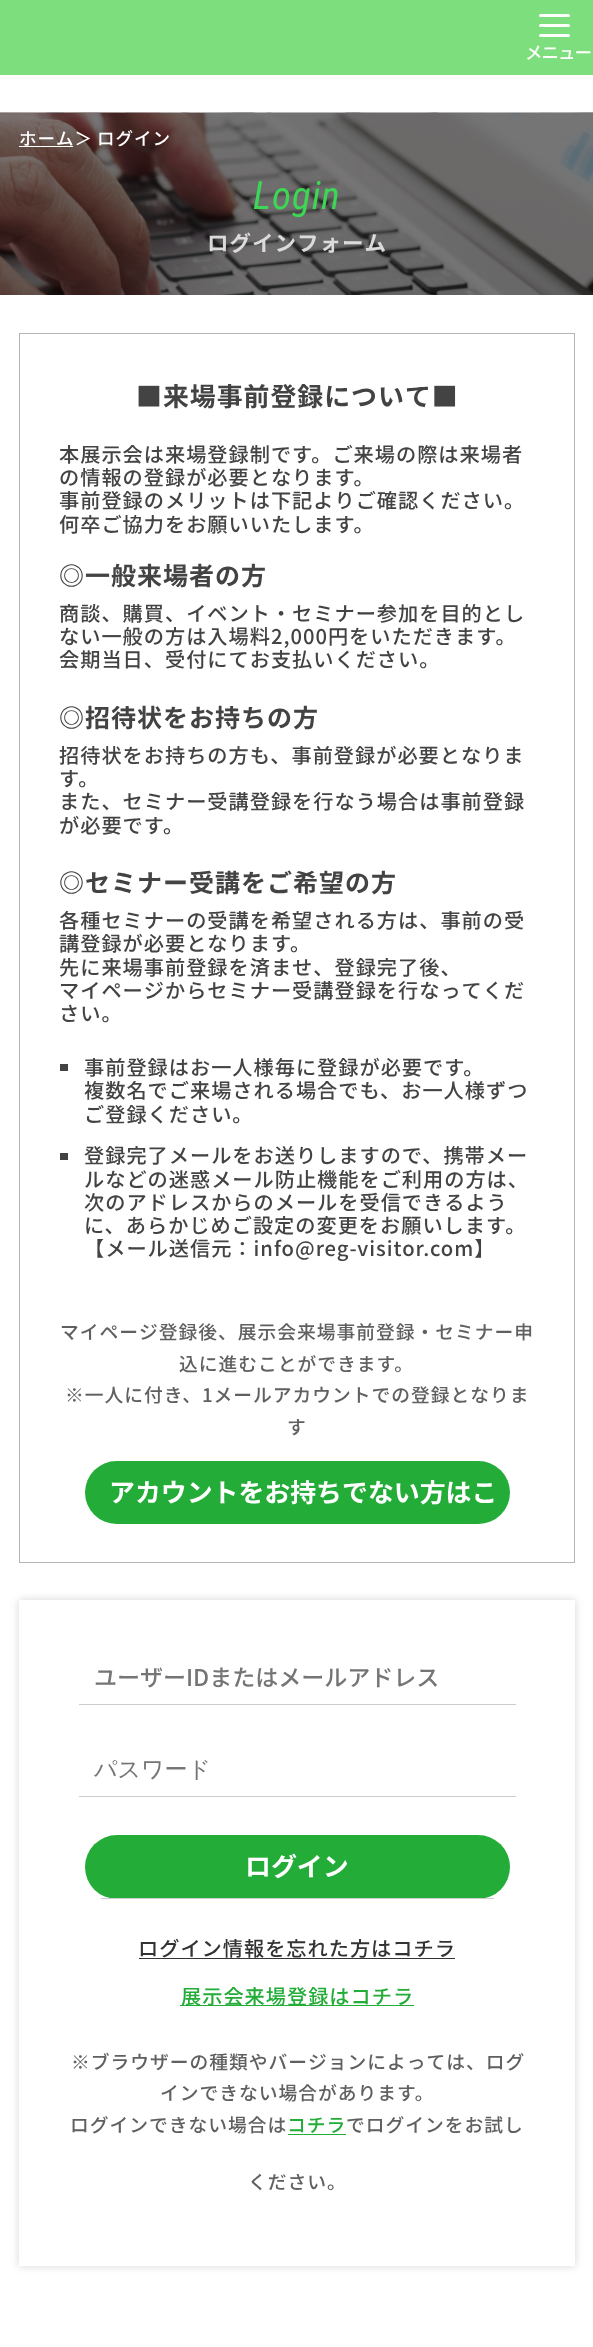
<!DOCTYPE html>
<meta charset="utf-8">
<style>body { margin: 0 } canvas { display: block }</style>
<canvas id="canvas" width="593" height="2347"></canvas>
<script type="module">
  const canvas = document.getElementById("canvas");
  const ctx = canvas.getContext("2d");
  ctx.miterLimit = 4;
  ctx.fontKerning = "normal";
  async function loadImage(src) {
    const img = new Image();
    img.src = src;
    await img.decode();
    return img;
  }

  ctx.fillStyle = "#ffffff";
  ctx.fillRect(0, 0, 593, 2347);
  ctx.fillStyle = "#7cde7c";
  ctx.fillRect(0, 0, 593, 75);
  ctx.fillStyle = "#ffffff";
  ctx.beginPath();
  ctx.roundRect(539, 24, 31, 3, 1.5);
  ctx.fill();
  ctx.beginPath();
  ctx.roundRect(539, 14, 31, 3, 1.5);
  ctx.fill();
  ctx.beginPath();
  ctx.roundRect(539, 34, 31, 3, 1.5);
  ctx.fill();
  ctx.letterSpacing = "-1px";
  ctx.font = "500 17.5px Noto Sans JP";
  ctx.fillText("メニュー", 525, 59);
  ctx.drawImage(await loadImage("img1.png"), 0, 112, 593, 183);
  ctx.letterSpacing = "1px";
  ctx.fillText("ホーム＞", 19, 145);
  ctx.fillRect(19, 146, 54, 1);
  ctx.fillText("ログイン", 97, 145);
  ctx.font = "italic 39px Roboto Condensed";
  ctx.fillStyle = "#3dd655";
  ctx.fillText("Login", 253, 209);
  ctx.font = "bold 21.5px Noto Sans JP";
  ctx.fillStyle = "#dbdbdb";
  ctx.fillText("ログインフォーム", 207, 251);
  ctx.strokeStyle = "#b5b5b5";
  ctx.strokeRect(19.5, 333.5, 555, 1229);
  ctx.font = "bold 25.9px Noto Sans JP";
  ctx.fillStyle = "#434343";
  ctx.fillText("■来場事前登録について■", 136, 406);
  ctx.font = "500 20.2px Noto Sans JP";
  ctx.fillText("本展示会は来場登録制です。ご来場の際は来場者", 59, 462);
  ctx.fillText("の情報の登録が必要となります。", 59, 485);
  ctx.fillText("事前登録のメリットは下記よりご確認ください。", 59, 508);
  ctx.fillText("何卒ご協力をお願いいたします。", 59, 532);
  ctx.font = "bold 25px Noto Sans JP";
  ctx.fillText("◎一般来場者の方", 59, 585);
  ctx.font = "500 20.2px Noto Sans JP";
  ctx.fillText("商談、購買、イベント・セミナー参加を目的とし", 59, 621);
  ctx.fillText("ない一般の方は入場料2,000円をいただきます。", 59, 644);
  ctx.fillText("会期当日、受付にてお支払いください。", 59, 667);
  ctx.font = "bold 25px Noto Sans JP";
  ctx.fillText("◎招待状をお持ちの方", 59, 727);
  ctx.font = "500 20.2px Noto Sans JP";
  ctx.fillText("招待状をお持ちの方も、事前登録が必要となりま", 59, 763);
  ctx.fillText("す。", 59, 786);
  ctx.fillText("また、セミナー受講登録を行なう場合は事前登録", 59, 809);
  ctx.fillText("が必要です。", 59, 833);
  ctx.font = "bold 25px Noto Sans JP";
  ctx.fillText("◎セミナー受講をご希望の方", 59, 892);
  ctx.font = "500 20.2px Noto Sans JP";
  ctx.fillText("各種セミナーの受講を希望される方は、事前の受", 59, 928);
  ctx.fillText("講登録が必要となります。", 59, 951);
  ctx.fillText("先に来場事前登録を済ませ、登録完了後、", 59, 975);
  ctx.fillText("マイページからセミナー受講登録を行なってくだ", 59, 998);
  ctx.fillText("さい。", 59, 1021);
  ctx.fillRect(60, 1064, 8, 7);
  ctx.fillText("事前登録はお一人様毎に登録が必要です。", 84, 1075);
  ctx.fillText("複数名でご来場される場合でも、お一人様ずつ", 84, 1098);
  ctx.fillText("ご登録ください。", 84, 1122);
  ctx.fillRect(60, 1153, 8, 7);
  ctx.fillText("登録完了メールをお送りしますので、携帯メー", 84, 1163);
  ctx.fillText("ルなどの迷惑メール防止機能をご利用の方は、", 84, 1187);
  ctx.fillText("次のアドレスからのメールを受信できるよう", 84, 1210);
  ctx.fillText("に、あらかじめご設定の変更をお願いします。", 84, 1233);
  ctx.fillText("【メール送信元：info@reg-visitor.com】", 84, 1256);
  ctx.font = "500 18.75px Noto Sans JP";
  ctx.fillStyle = "#606060";
  ctx.fillText("マイページ登録後、展示会来場事前登録・セミナー申", 60, 1339);
  ctx.fillText("込に進むことができます。", 179, 1371);
  ctx.fillText("※一人に付き、1メールアカウントでの登録となりま", 65, 1402);
  ctx.fillText("す", 287, 1434);
  ctx.fillStyle = "#23ac38";
  ctx.beginPath();
  ctx.roundRect(85, 1461, 425, 63, 31.5);
  ctx.fill();
  ctx.letterSpacing = "0px";
  ctx.font = "bold 25.9px Noto Sans JP";
  ctx.fillStyle = "#ffffff";
  ctx.fillText("アカウントをお持ちでない方はこ", 109, 1502);
  ctx.save();
  ctx.beginPath();
  ctx.moveTo(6, 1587);
  ctx.lineTo(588, 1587);
  ctx.lineTo(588, 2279);
  ctx.lineTo(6, 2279);
  ctx.closePath();
  ctx.moveTo(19, 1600);
  ctx.lineTo(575, 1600);
  ctx.lineTo(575, 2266);
  ctx.lineTo(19, 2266);
  ctx.closePath();
  ctx.clip("evenodd");
  ctx.fillStyle = "rgba(0, 0, 0, 0.16)";
  ctx.filter = "blur(4px)";
  ctx.beginPath();
  ctx.rect(19, 1600, 556, 666);
  ctx.fill();
  ctx.filter = "none";
  ctx.restore();
  ctx.fillStyle = "#cccccc";
  ctx.fillRect(79, 1704, 437, 1);
  ctx.font = "500 23px Noto Sans JP";
  ctx.fillStyle = "#757575";
  ctx.fillText("ユーザーIDまたはメールアドレス", 94, 1686);
  ctx.fillStyle = "#cccccc";
  ctx.fillRect(79, 1796, 437, 1);
  ctx.font = "500 23px WenQuanYi Zen Hei";
  ctx.fillStyle = "#757575";
  ctx.fillText("パスワード", 94, 1777);
  ctx.fillStyle = "#23ac38";
  ctx.beginPath();
  ctx.roundRect(85, 1835, 425, 64, 32);
  ctx.fill();
  ctx.fillStyle = "#cccccc";
  ctx.fillRect(101, 1898, 393, 1);
  ctx.font = "bold 25.9px Noto Sans JP";
  ctx.fillStyle = "#ffffff";
  ctx.fillText("ログイン", 245, 1876);
  ctx.letterSpacing = "1px";
  ctx.font = "500 20.2px Noto Sans JP";
  ctx.fillStyle = "#333333";
  ctx.fillText("ログイン情報を忘れた方はコチラ", 138, 1956);
  ctx.fillRect(139, 1958, 316, 1);
  ctx.fillStyle = "#23ac38";
  ctx.fillRect(180, 2005, 234, 1);
  ctx.fillText("展示会来場登録はコチラ", 181, 2004);
  ctx.font = "500 18.75px Noto Sans JP";
  ctx.fillStyle = "#606060";
  ctx.fillText("※ブラウザーの種類やバージョンによっては、ログ", 71, 2069);
  ctx.fillText("インできない場合があります。", 160, 2100);
  ctx.fillText("ログインできない場合は", 70, 2132);
  ctx.fillStyle = "#23ac38";
  ctx.fillText("コチラ", 287, 2132);
  ctx.fillRect(288, 2134, 58, 1);
  ctx.fillStyle = "#606060";
  ctx.fillText("でログインをお試し", 346, 2132);
  ctx.fillText("ください。", 248, 2189);
</script>
